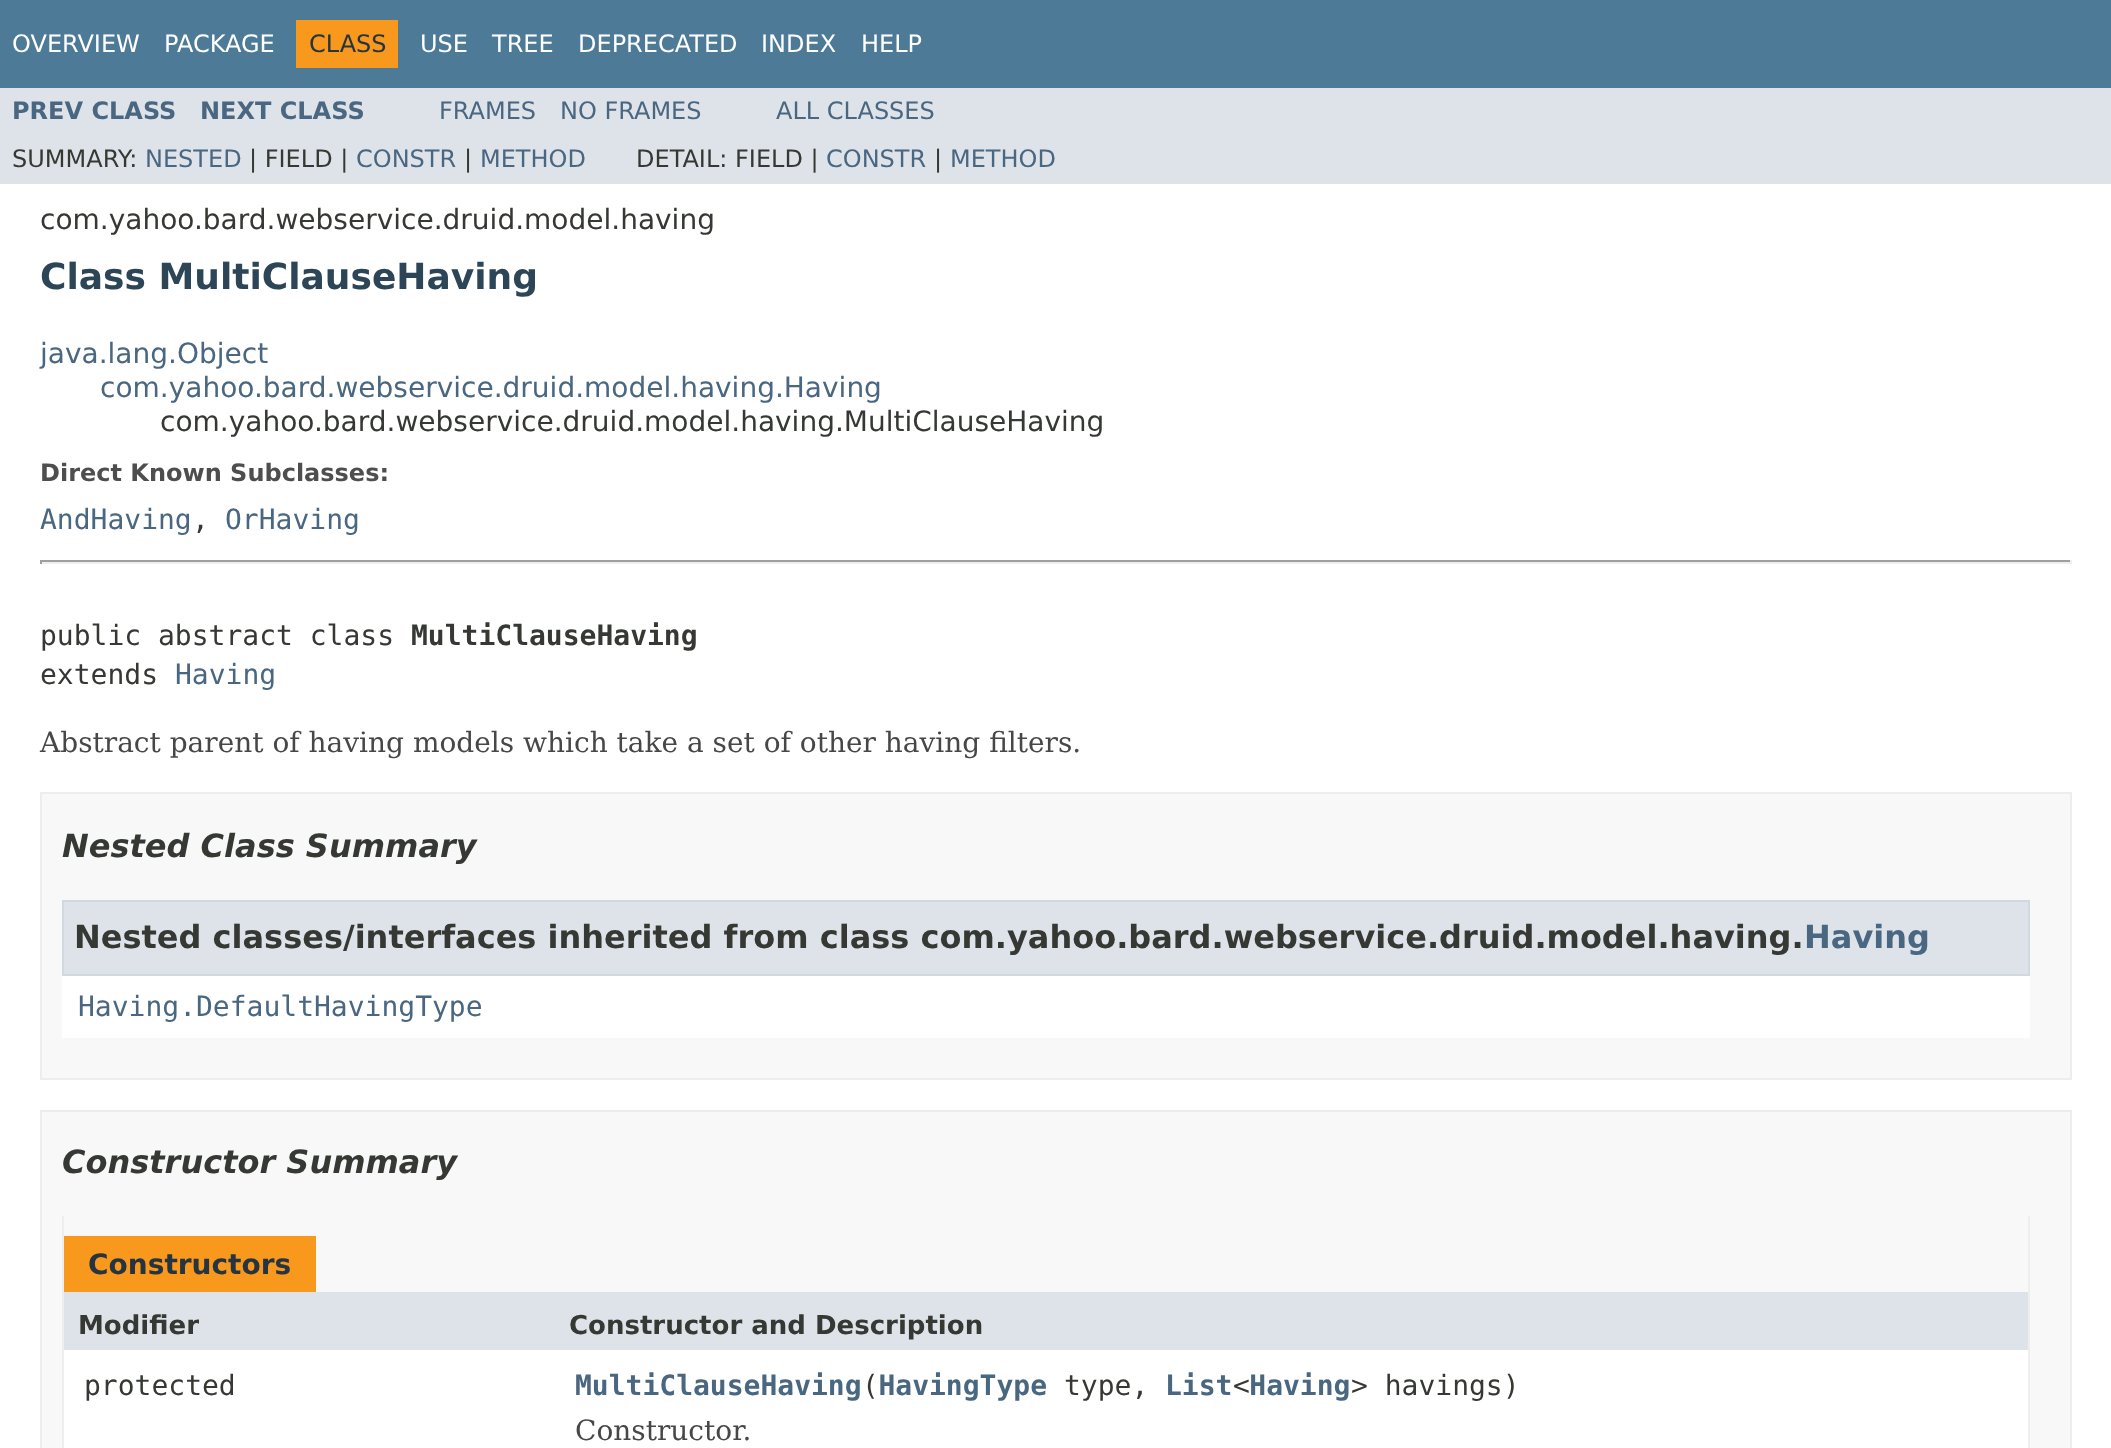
<!DOCTYPE html>
<meta charset="utf-8">
<style>body { margin: 0 } canvas { display: block }</style>
<canvas id="canvas" width="2111" height="1448"></canvas>
<script type="module">
  const canvas = document.getElementById("canvas");
  const ctx = canvas.getContext("2d");
  ctx.miterLimit = 4;
  ctx.fontKerning = "normal";

  ctx.fillStyle = "#ffffff";
  ctx.fillRect(0, 0, 2111, 1448);
  ctx.fillStyle = "#4d7a97";
  ctx.fillRect(0, 0, 2111, 88);
  ctx.font = "24px DejaVu Sans";
  ctx.fillStyle = "#ffffff";
  ctx.fillText("OVERVIEW", 12, 52);
  ctx.fillText("PACKAGE", 164, 52);
  ctx.fillStyle = "#f8981d";
  ctx.fillRect(296, 20, 102, 48);
  ctx.fillStyle = "#253441";
  ctx.fillText("CLASS", 309, 52);
  ctx.fillStyle = "#ffffff";
  ctx.fillText("USE", 420, 52);
  ctx.fillText("TREE", 492, 52);
  ctx.fillText("DEPRECATED", 578, 52);
  ctx.fillText("INDEX", 761, 52);
  ctx.fillText("HELP", 861, 52);
  ctx.fillStyle = "#dee3e9";
  ctx.fillRect(0, 88, 2111, 96);
  ctx.font = "bold 24px DejaVu Sans";
  ctx.fillStyle = "#4a6782";
  ctx.fillText("PREV CLASS", 12, 119);
  ctx.fillText("NEXT CLASS", 200, 119);
  ctx.font = "24px DejaVu Sans";
  ctx.fillText("FRAMES", 439, 119);
  ctx.fillText("NO FRAMES", 560, 119);
  ctx.fillText("ALL CLASSES", 776, 119);
  ctx.fillStyle = "#353833";
  ctx.fillText("SUMMARY:", 12, 167);
  ctx.fillStyle = "#4a6782";
  ctx.fillText("NESTED", 145, 167);
  ctx.fillStyle = "#353833";
  ctx.fillText("| FIELD |", 249, 167);
  ctx.fillStyle = "#4a6782";
  ctx.fillText("CONSTR", 356, 167);
  ctx.fillStyle = "#353833";
  ctx.fillText("|", 464, 167);
  ctx.fillStyle = "#4a6782";
  ctx.fillText("METHOD", 480, 167);
  ctx.fillStyle = "#353833";
  ctx.fillText("DETAIL: FIELD |", 636, 167);
  ctx.fillStyle = "#4a6782";
  ctx.fillText("CONSTR", 826, 167);
  ctx.fillStyle = "#353833";
  ctx.fillText("|", 934, 167);
  ctx.fillStyle = "#4a6782";
  ctx.fillText("METHOD", 950, 167);
  ctx.font = "28px DejaVu Sans";
  ctx.fillStyle = "#353833";
  ctx.fillText("com.yahoo.bard.webservice.druid.model.having", 40, 229);
  ctx.font = "bold 36px DejaVu Sans";
  ctx.fillStyle = "#2c4557";
  ctx.fillText("Class MultiClauseHaving", 40, 289);
  ctx.font = "28px DejaVu Sans";
  ctx.fillStyle = "#4a6782";
  ctx.fillText("java.lang.Object", 40, 363);
  ctx.fillText("com.yahoo.bard.webservice.druid.model.having.Having", 100, 397);
  ctx.fillStyle = "#353833";
  ctx.fillText("com.yahoo.bard.webservice.druid.model.having.MultiClauseHaving", 160, 431);
  ctx.font = "bold 24px DejaVu Sans";
  ctx.fillStyle = "#4e4e4e";
  ctx.fillText("Direct Known Subclasses:", 40, 481);
  ctx.font = "28px DejaVu Sans Mono";
  ctx.fillStyle = "#4a6782";
  ctx.fillText("AndHaving", 40, 529);
  ctx.fillStyle = "#353833";
  ctx.fillText(",", 192, 529);
  ctx.fillStyle = "#4a6782";
  ctx.fillText("OrHaving", 225, 529);
  ctx.fillStyle = "#9f9f9f";
  ctx.fillRect(40, 560, 2032, 2);
  ctx.fillStyle = "#eeeeee";
  ctx.fillRect(2070, 560, 2, 4);
  ctx.fillRect(40, 562, 2032, 2);
  ctx.fillStyle = "#9f9f9f";
  ctx.fillRect(40, 560, 2, 4);
  ctx.fillStyle = "#353833";
  ctx.fillText("public abstract class", 40, 645);
  ctx.font = "bold 28px DejaVu Sans Mono";
  ctx.fillText("MultiClauseHaving", 411, 645);
  ctx.font = "28px DejaVu Sans Mono";
  ctx.fillText("extends", 40, 684);
  ctx.fillStyle = "#4a6782";
  ctx.fillText("Having", 175, 684);
  ctx.font = "28px DejaVu Serif";
  ctx.fillStyle = "#474747";
  ctx.fillText("Abstract parent of having models which take a set of other having filters.", 40, 752);
  ctx.fillStyle = "#f8f8f8";
  ctx.beginPath();
  ctx.rect(41, 793, 2030, 286);
  ctx.fill();
  ctx.strokeStyle = "#ededed";
  ctx.lineWidth = 2;
  ctx.stroke();
  ctx.font = "italic bold 32px DejaVu Sans";
  ctx.fillStyle = "#353833";
  ctx.fillText("Nested Class Summary", 62, 857);
  ctx.fillStyle = "#ffffff";
  ctx.fillRect(62, 976, 1968, 62);
  ctx.fillStyle = "#dee3e9";
  ctx.beginPath();
  ctx.rect(63, 901, 1966, 74);
  ctx.fill();
  ctx.strokeStyle = "#d0d9e0";
  ctx.stroke();
  ctx.font = "bold 32px DejaVu Sans";
  ctx.fillStyle = "#353833";
  ctx.fillText("Nested classes/interfaces inherited from class com.yahoo.bard.webservice.druid.model.having.", 74, 948);
  ctx.fillStyle = "#4a6782";
  ctx.fillText("Having", 1804, 948);
  ctx.font = "28px DejaVu Sans Mono";
  ctx.fillText("Having.DefaultHavingType", 78, 1016);
  ctx.fillStyle = "#f8f8f8";
  ctx.beginPath();
  ctx.rect(41, 1111, 2030, 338);
  ctx.fill();
  ctx.strokeStyle = "#ededed";
  ctx.stroke();
  ctx.font = "italic bold 32px DejaVu Sans";
  ctx.fillStyle = "#353833";
  ctx.fillText("Constructor Summary", 62, 1173);
  ctx.fillStyle = "#eeeeee";
  ctx.fillRect(2028, 1216, 2, 232);
  ctx.fillRect(62, 1216, 2, 232);
  ctx.fillStyle = "#f8981d";
  ctx.fillRect(64, 1236, 252, 56);
  ctx.font = "bold 28px DejaVu Sans";
  ctx.fillStyle = "#253441";
  ctx.fillText("Constructors", 88, 1274);
  ctx.fillStyle = "#dee3e9";
  ctx.fillRect(64, 1292, 1964, 58);
  ctx.font = "bold 26px DejaVu Sans";
  ctx.fillStyle = "#353833";
  ctx.fillText("Modifier", 78, 1334);
  ctx.fillText("Constructor and Description", 569, 1334);
  ctx.fillStyle = "#ffffff";
  ctx.fillRect(64, 1350, 1964, 98);
  ctx.font = "28px DejaVu Sans Mono";
  ctx.fillStyle = "#353833";
  ctx.fillText("protected", 84, 1395);
  ctx.font = "bold 28px DejaVu Sans Mono";
  ctx.fillStyle = "#4a6782";
  ctx.fillText("MultiClauseHaving HavingType", 575, 1395);
  ctx.fillText("List Having", 1165, 1395);
  ctx.font = "28px DejaVu Sans Mono";
  ctx.fillStyle = "#353833";
  ctx.fillText("(", 862, 1395);
  ctx.fillText("type,", 1064, 1395);
  ctx.fillText("<", 1233, 1395);
  ctx.fillText("> havings)", 1351, 1395);
  ctx.font = "28px DejaVu Serif";
  ctx.fillStyle = "#474747";
  ctx.fillText("Constructor.", 575, 1440);
</script>
